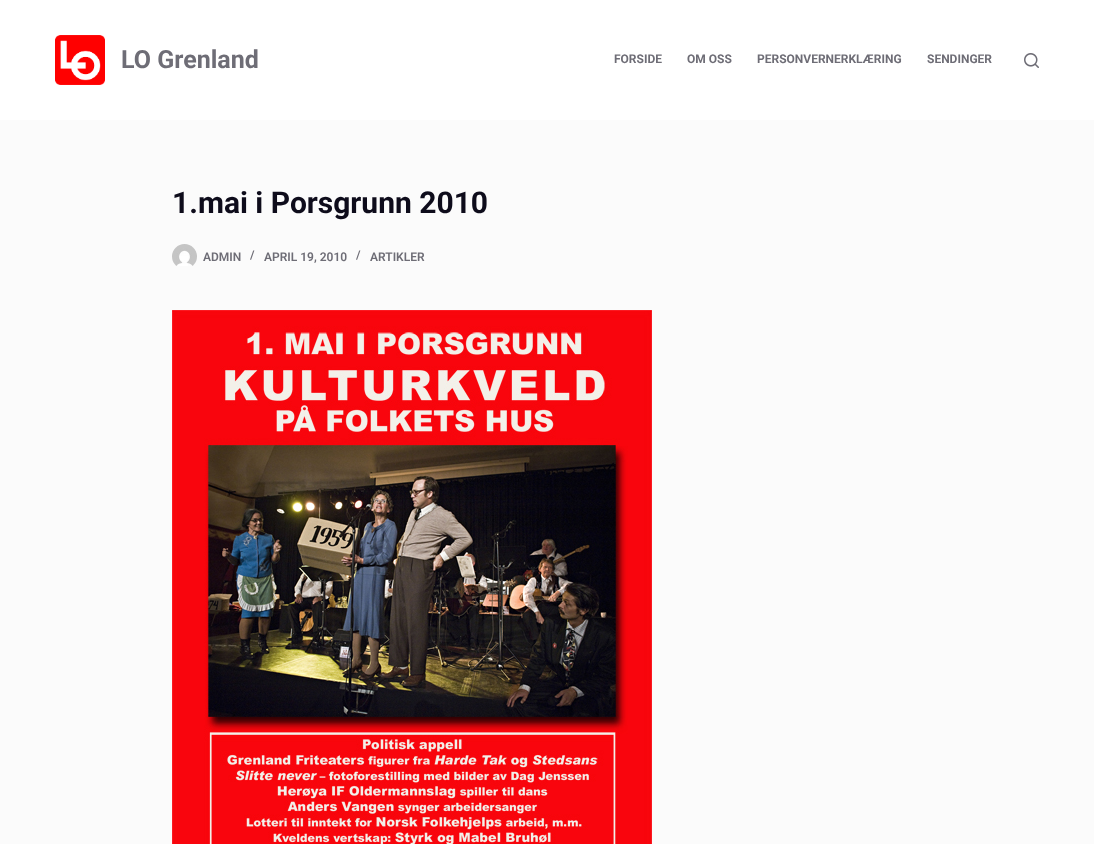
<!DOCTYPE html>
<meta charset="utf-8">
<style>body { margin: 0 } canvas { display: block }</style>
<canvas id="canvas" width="1094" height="844"></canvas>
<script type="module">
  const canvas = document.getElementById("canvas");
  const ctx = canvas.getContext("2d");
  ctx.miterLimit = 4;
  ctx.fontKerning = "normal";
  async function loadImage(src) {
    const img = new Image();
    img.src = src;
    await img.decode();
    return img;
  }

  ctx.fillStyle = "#fbfbfb";
  ctx.fillRect(0, 0, 1094, 844);
  ctx.fillStyle = "#ffffff";
  ctx.fillRect(0, 0, 1094, 120);
  ctx.drawImage(await loadImage("img1.png"), 55, 35, 50, 50);
  ctx.font = "bold 25px Roboto";
  ctx.fillStyle = "#6e6d76";
  ctx.fillText("LO Grenland", 121, 68);
  ctx.font = "bold 12px Roboto";
  ctx.fillText("FORSIDE", 614, 63);
  ctx.fillText("OM OSS", 687, 63);
  ctx.fillText("PERSONVERNERKLÆRING", 757, 63);
  ctx.fillText("SENDINGER", 927, 63);
  ctx.drawImage(await loadImage("img2.png"), 1024, 53, 15, 15);
  ctx.font = "bold 30px Roboto";
  ctx.fillStyle = "#0e0c1b";
  ctx.fillText("1.mai i Porsgrunn 2010", 172, 213);
  ctx.drawImage(await loadImage("img3.png"), 172, 244, 25, 22);
  ctx.font = "600 12px Roboto";
  ctx.fillStyle = "#6e6d76";
  ctx.fillText("ADMIN", 203, 261);
  ctx.fillText("/", 250, 259);
  ctx.fillText("APRIL 19, 2010", 264, 261);
  ctx.fillText("/", 356, 259);
  ctx.fillText("ARTIKLER", 370, 261);
  ctx.drawImage(await loadImage("img4.png"), 172, 310, 480, 534);
</script>
